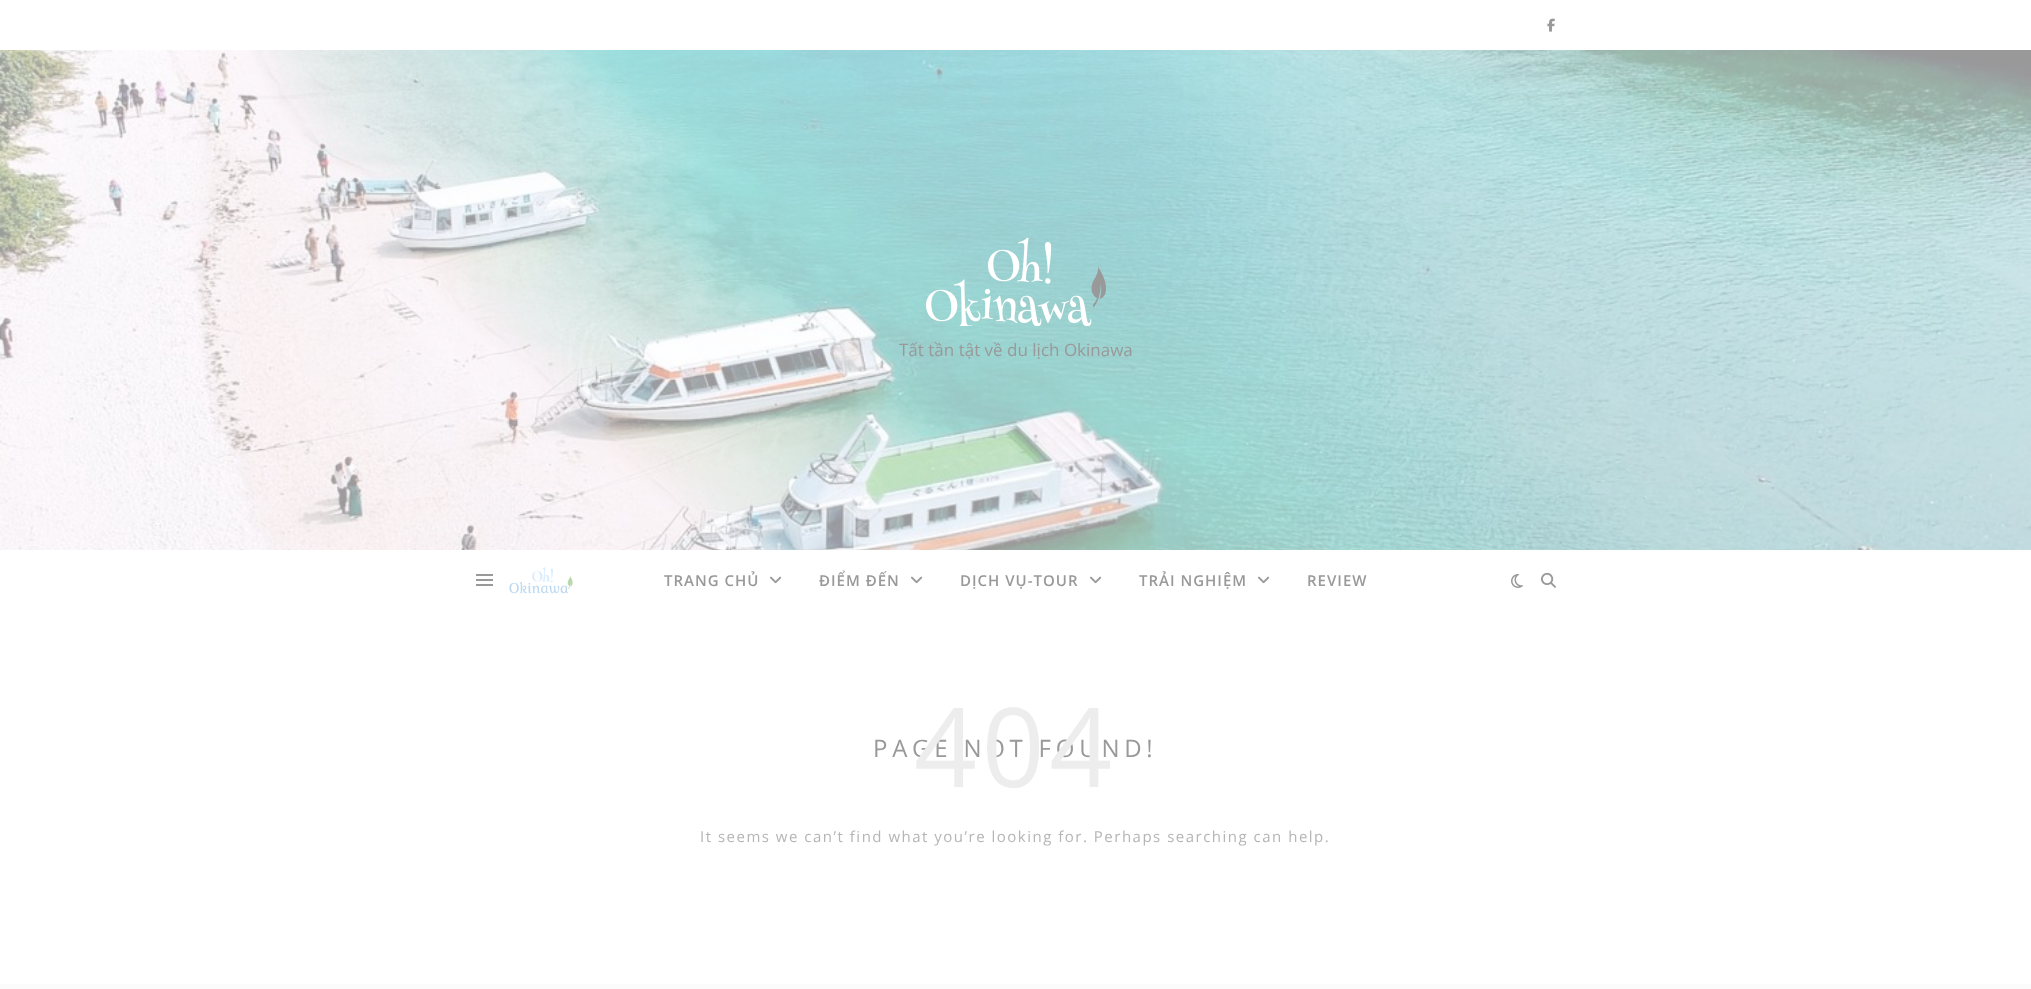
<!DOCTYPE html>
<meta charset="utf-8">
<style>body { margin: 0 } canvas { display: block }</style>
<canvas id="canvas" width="2031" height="989"></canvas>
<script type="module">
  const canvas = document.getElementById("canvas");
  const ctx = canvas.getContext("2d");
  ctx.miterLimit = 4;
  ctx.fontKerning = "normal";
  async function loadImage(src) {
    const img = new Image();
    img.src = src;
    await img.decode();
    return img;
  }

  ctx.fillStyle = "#ffffff";
  ctx.fillRect(0, 0, 2031, 989);
  ctx.drawImage(await loadImage("img1.png"), 1547, 18, 8, 14);
  ctx.drawImage(await loadImage("img2.png"), 0, 50, 2031, 500);
  ctx.drawImage(await loadImage("img3.png"), 926, 238, 180, 88);
  ctx.font = "17px Open Sans";
  ctx.fillStyle = "#999999";
  ctx.fillText("Tất tần tật về du lịch Okinawa", 899, 356);
  ctx.fillRect(476, 574, 17, 2);
  ctx.fillRect(476, 579, 17, 2);
  ctx.fillRect(476, 584, 17, 2);
  ctx.drawImage(await loadImage("img4.png"), 509, 566, 64, 28);
  ctx.letterSpacing = "1px";
  ctx.font = "600 15px Open Sans";
  ctx.fillText("TRANG CHỦ", 664, 586);
  ctx.drawImage(await loadImage("img5.png"), 770, 576, 12, 8);
  ctx.fillText("ĐIỂM ĐẾN", 819, 586);
  ctx.drawImage(await loadImage("img5.png"), 911, 576, 12, 8);
  ctx.fillText("DỊCH VỤ-TOUR", 960, 586);
  ctx.drawImage(await loadImage("img5.png"), 1090, 576, 12, 8);
  ctx.fillText("TRẢI NGHIỆM", 1139, 586);
  ctx.drawImage(await loadImage("img5.png"), 1258, 576, 12, 8);
  ctx.fillText("REVIEW", 1307, 586);
  ctx.drawImage(await loadImage("img6.png"), 1511, 574, 12, 14);
  ctx.drawImage(await loadImage("img7.png"), 1541, 572, 15, 16);
  ctx.letterSpacing = "4.75px";
  ctx.font = "24px Open Sans";
  ctx.fillText("PAGE NOT FOUND!", 873, 757);
  ctx.font = "110px Open Sans";
  ctx.fillStyle = "#ededed";
  ctx.fillText("404", 914, 787);
  ctx.letterSpacing = "1.5px";
  ctx.font = "15px Open Sans";
  ctx.fillStyle = "#b5b5b5";
  ctx.fillText("It seems we can’t find what you’re looking for. Perhaps searching can help.", 700, 842);
  ctx.fillStyle = "#fbfbfb";
  ctx.fillRect(0, 984, 2031, 5);
</script>
